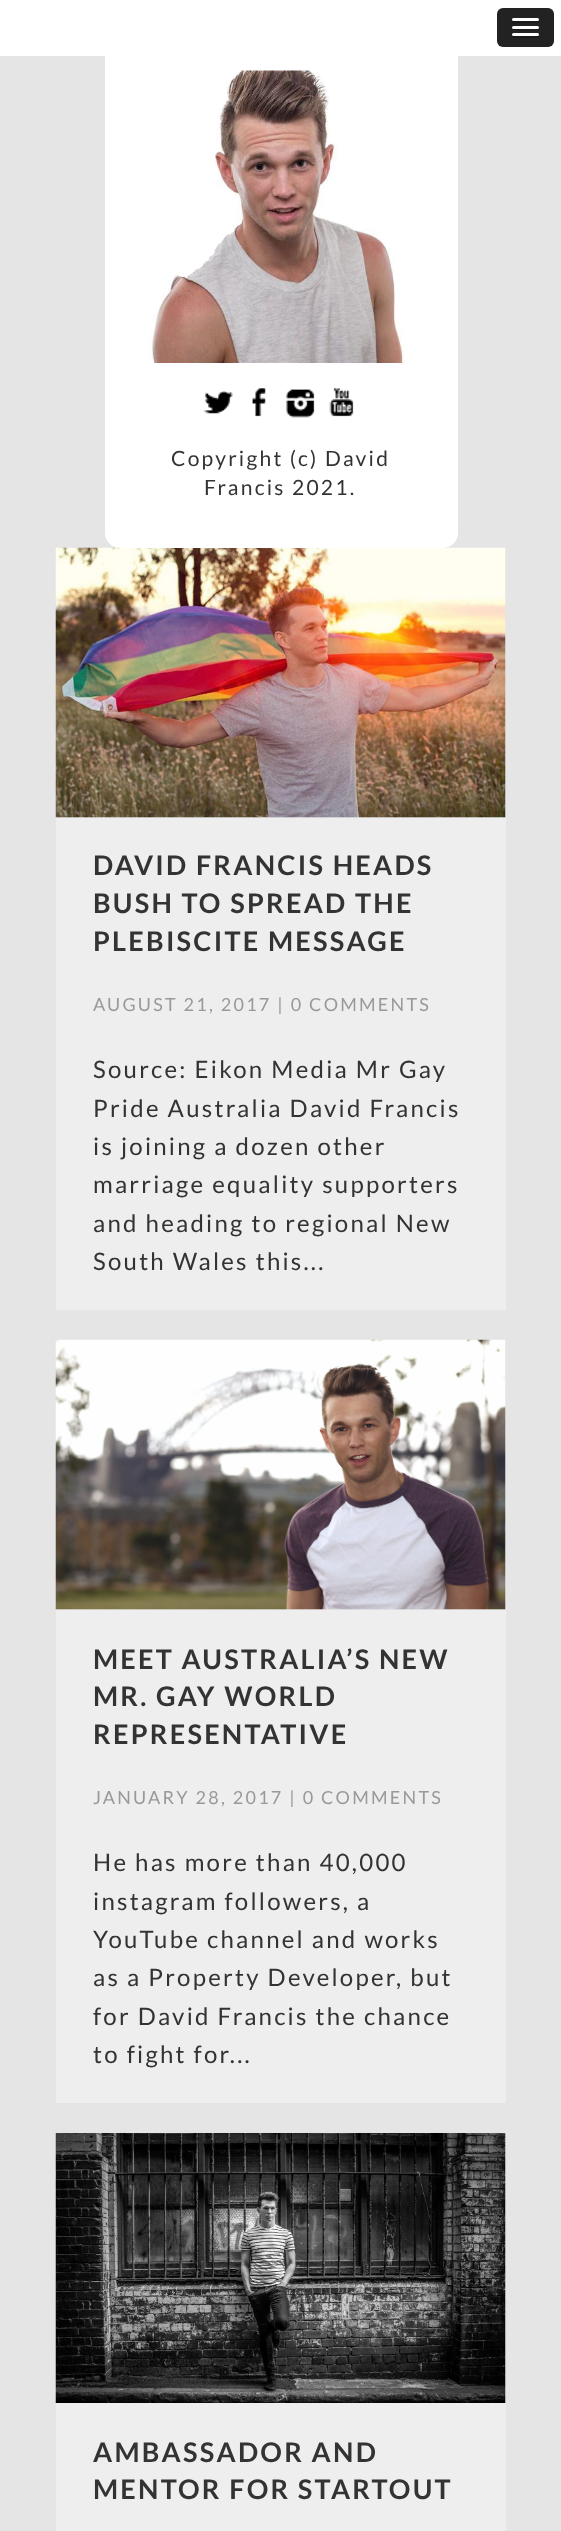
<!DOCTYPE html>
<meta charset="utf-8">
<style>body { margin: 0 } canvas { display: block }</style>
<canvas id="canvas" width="561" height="2531"></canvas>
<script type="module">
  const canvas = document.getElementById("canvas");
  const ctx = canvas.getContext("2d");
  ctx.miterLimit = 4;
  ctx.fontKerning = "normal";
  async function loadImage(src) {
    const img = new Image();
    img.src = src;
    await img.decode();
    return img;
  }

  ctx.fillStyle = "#e5e5e5";
  ctx.fillRect(0, 0, 561, 2531);
  ctx.fillStyle = "#ffffff";
  ctx.fillRect(0, 0, 561, 56);
  ctx.fillStyle = "#222222";
  ctx.beginPath();
  ctx.roundRect(497, 8, 57, 39, 6);
  ctx.fill();
  ctx.fillStyle = "#1a1a1a";
  ctx.beginPath();
  ctx.moveTo(512, 21);
  ctx.bezierCurveTo(510.5, 24, 517.5, 23, 517.5, 23);
  ctx.lineTo(538, 23);
  ctx.bezierCurveTo(539, 22.5, 539.5, 21, 538.5, 20);
  ctx.lineTo(537, 21);
  ctx.bezierCurveTo(535, 21.5, 513, 21.5, 512, 21);
  ctx.closePath();
  ctx.fill();
  ctx.fillStyle = "#ffffff";
  ctx.beginPath();
  ctx.roundRect(512, 18, 27, 3, 1.5);
  ctx.fill();
  ctx.fillStyle = "#1a1a1a";
  ctx.beginPath();
  ctx.moveTo(512, 28);
  ctx.bezierCurveTo(511.5, 31, 517, 30, 517.5, 30);
  ctx.lineTo(537.5, 30);
  ctx.bezierCurveTo(539, 30, 539.5, 28, 538.5, 27.5);
  ctx.lineTo(537.5, 28.5);
  ctx.bezierCurveTo(536, 29, 512.5, 28.5, 512, 28);
  ctx.closePath();
  ctx.fill();
  ctx.fillStyle = "#ffffff";
  ctx.beginPath();
  ctx.roundRect(512, 26, 27, 3, 1.5);
  ctx.fill();
  ctx.fillStyle = "#1a1a1a";
  ctx.beginPath();
  ctx.moveTo(512, 36);
  ctx.bezierCurveTo(510.5, 39, 517.5, 38, 517.5, 38);
  ctx.lineTo(538, 38);
  ctx.bezierCurveTo(539, 37.5, 539.5, 36, 538.5, 35);
  ctx.lineTo(537, 36);
  ctx.bezierCurveTo(535, 36.5, 513, 36.5, 512, 36);
  ctx.closePath();
  ctx.fill();
  ctx.fillStyle = "#ffffff";
  ctx.beginPath();
  ctx.roundRect(512, 33, 27, 3, 1.5);
  ctx.fill();
  ctx.drawImage(await loadImage("img6.png"), 55, 547, 451, 271);
  ctx.beginPath();
  ctx.roundRect(105, 56, 353, 492, [0, 0, 15, 15]);
  ctx.fill();
  ctx.drawImage(await loadImage("img1.png"), 148, 70, 257, 293);
  ctx.drawImage(await loadImage("img2.png"), 203, 391, 30, 23);
  ctx.drawImage(await loadImage("img3.png"), 252, 388, 14, 29);
  ctx.drawImage(await loadImage("img4.png"), 286, 389, 29, 29);
  ctx.drawImage(await loadImage("img5.png"), 329, 388, 25, 29);
  ctx.letterSpacing = "2.25px";
  ctx.font = "21px Lato";
  ctx.fillStyle = "#333333";
  ctx.fillText("Copyright (c) David", 171, 466);
  ctx.fillText("Francis 2021.", 204, 495);
  ctx.fillStyle = "#eeeeee";
  ctx.fillRect(56, 818, 450, 492);
  ctx.font = "bold 27px Lato";
  ctx.fillStyle = "#333333";
  ctx.fillText("DAVID FRANCIS HEADS", 93, 875);
  ctx.fillText("BUSH TO SPREAD THE", 93, 913);
  ctx.fillText("PLEBISCITE MESSAGE", 93, 951);
  ctx.font = "18px Lato";
  ctx.fillStyle = "#999999";
  ctx.fillText("AUGUST 21, 2017 | 0 COMMENTS", 93, 1011);
  ctx.font = "24px Lato";
  ctx.fillStyle = "#333333";
  ctx.fillText("Source: Eikon Media Mr Gay", 93, 1078);
  ctx.fillText("Pride Australia David Francis", 93, 1117);
  ctx.fillText("is joining a dozen other", 93, 1155);
  ctx.fillText("marriage equality supporters", 93, 1193);
  ctx.fillText("and heading to regional New", 93, 1232);
  ctx.fillText("South Wales this...", 93, 1270);
  ctx.drawImage(await loadImage("img7.png"), 55, 1339, 451, 271);
  ctx.fillStyle = "#eeeeee";
  ctx.fillRect(56, 1610, 450, 493);
  ctx.font = "bold 27px Lato";
  ctx.fillStyle = "#333333";
  ctx.fillText("MEET AUSTRALIA’S NEW", 93, 1669);
  ctx.fillText("MR. GAY WORLD", 93, 1706);
  ctx.fillText("REPRESENTATIVE", 93, 1744);
  ctx.font = "18px Lato";
  ctx.fillStyle = "#999999";
  ctx.fillText("JANUARY 28, 2017 | 0 COMMENTS", 93, 1804);
  ctx.font = "24px Lato";
  ctx.fillStyle = "#333333";
  ctx.fillText("He has more than 40,000", 93, 1871);
  ctx.fillText("instagram followers, a", 93, 1910);
  ctx.fillText("YouTube channel and works", 93, 1948);
  ctx.fillText("as a Property Developer, but", 93, 1986);
  ctx.fillText("for David Francis the chance", 93, 2025);
  ctx.fillText("to fight for...", 93, 2063);
  ctx.drawImage(await loadImage("img8.png"), 55, 2133, 451, 270);
  ctx.fillStyle = "#eeeeee";
  ctx.fillRect(56, 2403, 450, 128);
  ctx.font = "bold 27px Lato";
  ctx.fillStyle = "#333333";
  ctx.fillText("AMBASSADOR AND", 93, 2462);
  ctx.fillText("MENTOR FOR STARTOUT", 93, 2499);
</script>
